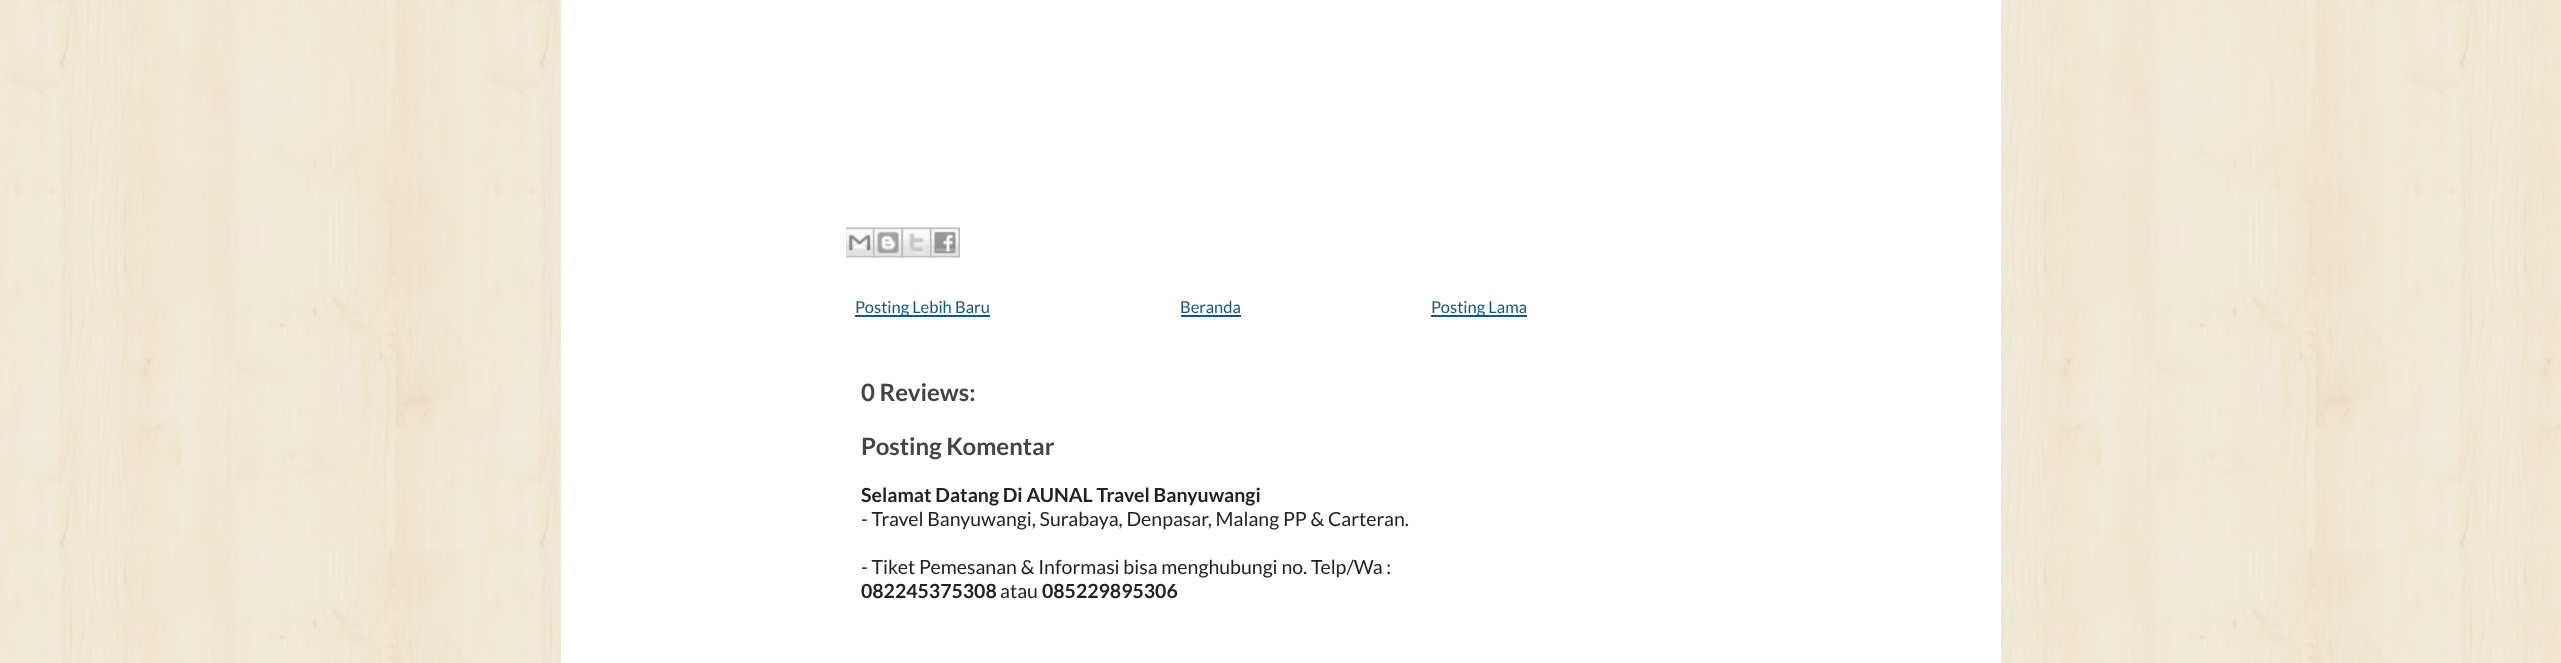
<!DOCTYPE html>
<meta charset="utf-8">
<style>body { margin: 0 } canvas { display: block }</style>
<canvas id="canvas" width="2561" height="663"></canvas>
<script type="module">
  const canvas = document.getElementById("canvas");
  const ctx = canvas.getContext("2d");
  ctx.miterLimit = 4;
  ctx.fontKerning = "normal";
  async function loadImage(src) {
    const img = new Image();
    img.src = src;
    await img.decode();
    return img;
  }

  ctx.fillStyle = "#ffffff";
  ctx.fillRect(0, 0, 2561, 663);
  ctx.drawImage(await loadImage("img1.png"), 0, 0, 2561, 663);
  ctx.fillRect(561, 0, 1440, 663);
  ctx.drawImage(await loadImage("img2.png"), 846, 227, 29, 31);
  ctx.drawImage(await loadImage("img3.png"), 873, 227, 30, 31);
  ctx.drawImage(await loadImage("img4.png"), 901, 227, 31, 31);
  ctx.drawImage(await loadImage("img5.png"), 930, 227, 30, 31);
  ctx.fillStyle = "#155780";
  ctx.fillRect(855, 315, 135, 2);
  ctx.font = "16.5px Lato";
  ctx.fillText("Posting Lebih Baru", 855, 313);
  ctx.fillText("Beranda", 1180, 313);
  ctx.fillRect(1181, 315, 60, 2);
  ctx.fillRect(1431, 315, 96, 2);
  ctx.fillText("Posting Lama", 1431, 313);
  ctx.font = "bold 24px Lato";
  ctx.fillStyle = "#444444";
  ctx.fillText("0 Reviews:", 861, 401);
  ctx.fillText("Posting Komentar", 861, 455);
  ctx.font = "bold 19.5px Lato";
  ctx.fillStyle = "#222222";
  ctx.fillText("Selamat Datang Di AUNAL Travel Banyuwangi", 861, 502);
  ctx.font = "19.5px Lato";
  ctx.fillText("- Travel Banyuwangi, Surabaya, Denpasar, Malang PP & Carteran.", 861, 526);
  ctx.fillText("- Tiket Pemesanan & Informasi bisa menghubungi no. Telp/Wa :", 861, 574);
  ctx.font = "bold 19.5px Lato";
  ctx.fillText("082245375308", 861, 598);
  ctx.font = "19.5px Lato";
  ctx.fillText("atau", 1000, 598);
  ctx.font = "bold 19.5px Lato";
  ctx.fillText("085229895306", 1042, 598);
</script>
